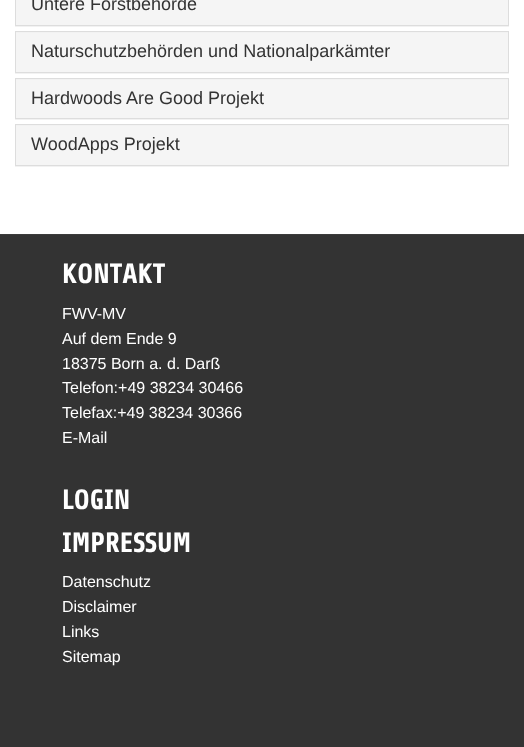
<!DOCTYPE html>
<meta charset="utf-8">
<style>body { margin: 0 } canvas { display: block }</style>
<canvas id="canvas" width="524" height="747"></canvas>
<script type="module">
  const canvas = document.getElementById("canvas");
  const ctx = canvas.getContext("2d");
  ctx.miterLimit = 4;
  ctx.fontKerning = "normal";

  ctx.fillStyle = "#ffffff";
  ctx.fillRect(0, 0, 524, 747);
  ctx.fillStyle = "rgba(0, 0, 0, 0.05)";
  ctx.filter = "blur(0.5px)";
  ctx.beginPath();
  ctx.rect(15, -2, 494, 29);
  ctx.fill();
  ctx.filter = "none";
  ctx.strokeStyle = "#dddddd";
  ctx.strokeRect(15.5, -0.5, 493, 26);
  ctx.fillStyle = "#f5f5f5";
  ctx.fillRect(16, 0, 492, 25);
  ctx.font = "18px Liberation Sans";
  ctx.fillStyle = "#333333";
  ctx.fillText("Untere Forstbehörde", 31, 10);
  ctx.fillStyle = "rgba(0, 0, 0, 0.05)";
  ctx.filter = "blur(0.5px)";
  ctx.beginPath();
  ctx.rect(15, 32, 494, 42);
  ctx.fill();
  ctx.filter = "none";
  ctx.strokeRect(15.5, 31.5, 493, 41);
  ctx.fillStyle = "#f5f5f5";
  ctx.fillRect(16, 33, 492, 39);
  ctx.fillStyle = "#333333";
  ctx.fillText("Naturschutzbehörden und Nationalparkämter", 31, 57);
  ctx.fillStyle = "rgba(0, 0, 0, 0.05)";
  ctx.filter = "blur(0.5px)";
  ctx.beginPath();
  ctx.rect(15, 79, 494, 41);
  ctx.fill();
  ctx.filter = "none";
  ctx.strokeRect(15.5, 78.5, 493, 40);
  ctx.fillStyle = "#f5f5f5";
  ctx.fillRect(16, 80, 492, 38);
  ctx.fillStyle = "#333333";
  ctx.fillText("Hardwoods Are Good Projekt", 31, 104);
  ctx.fillStyle = "rgba(0, 0, 0, 0.05)";
  ctx.filter = "blur(0.5px)";
  ctx.beginPath();
  ctx.rect(15, 125, 494, 42);
  ctx.fill();
  ctx.filter = "none";
  ctx.strokeRect(15.5, 124.5, 493, 41);
  ctx.fillStyle = "#f5f5f5";
  ctx.fillRect(16, 126, 492, 39);
  ctx.fillStyle = "#333333";
  ctx.fillText("WoodApps Projekt", 31, 150);
  ctx.fillRect(0, 235, 524, 512);
  ctx.fillStyle = "#3c3c3c";
  ctx.fillRect(0, 234, 524, 1);
  ctx.font = "bold 28px Share";
  ctx.fillStyle = "#ffffff";
  ctx.fillText("KONTAKT", 62, 283);
  ctx.font = "16px Liberation Sans";
  ctx.fillText("FWV-MV", 62, 319);
  ctx.fillText("Auf dem Ende 9", 62, 344);
  ctx.fillText("18375 Born a. d. Darß", 62, 369);
  ctx.fillText("Telefon:+49 38234 30466", 62, 393);
  ctx.fillText("Telefax:+49 38234 30366", 62, 418);
  ctx.fillText("E-Mail", 62, 443);
  ctx.font = "bold 28px Share";
  ctx.fillText("LOGIN", 62, 509);
  ctx.fillText("IMPRESSUM", 62, 552);
  ctx.font = "16px Liberation Sans";
  ctx.fillText("Datenschutz", 62, 587);
  ctx.fillText("Disclaimer", 62, 612);
  ctx.fillText("Links", 62, 637);
  ctx.fillText("Sitemap", 62, 662);
</script>
